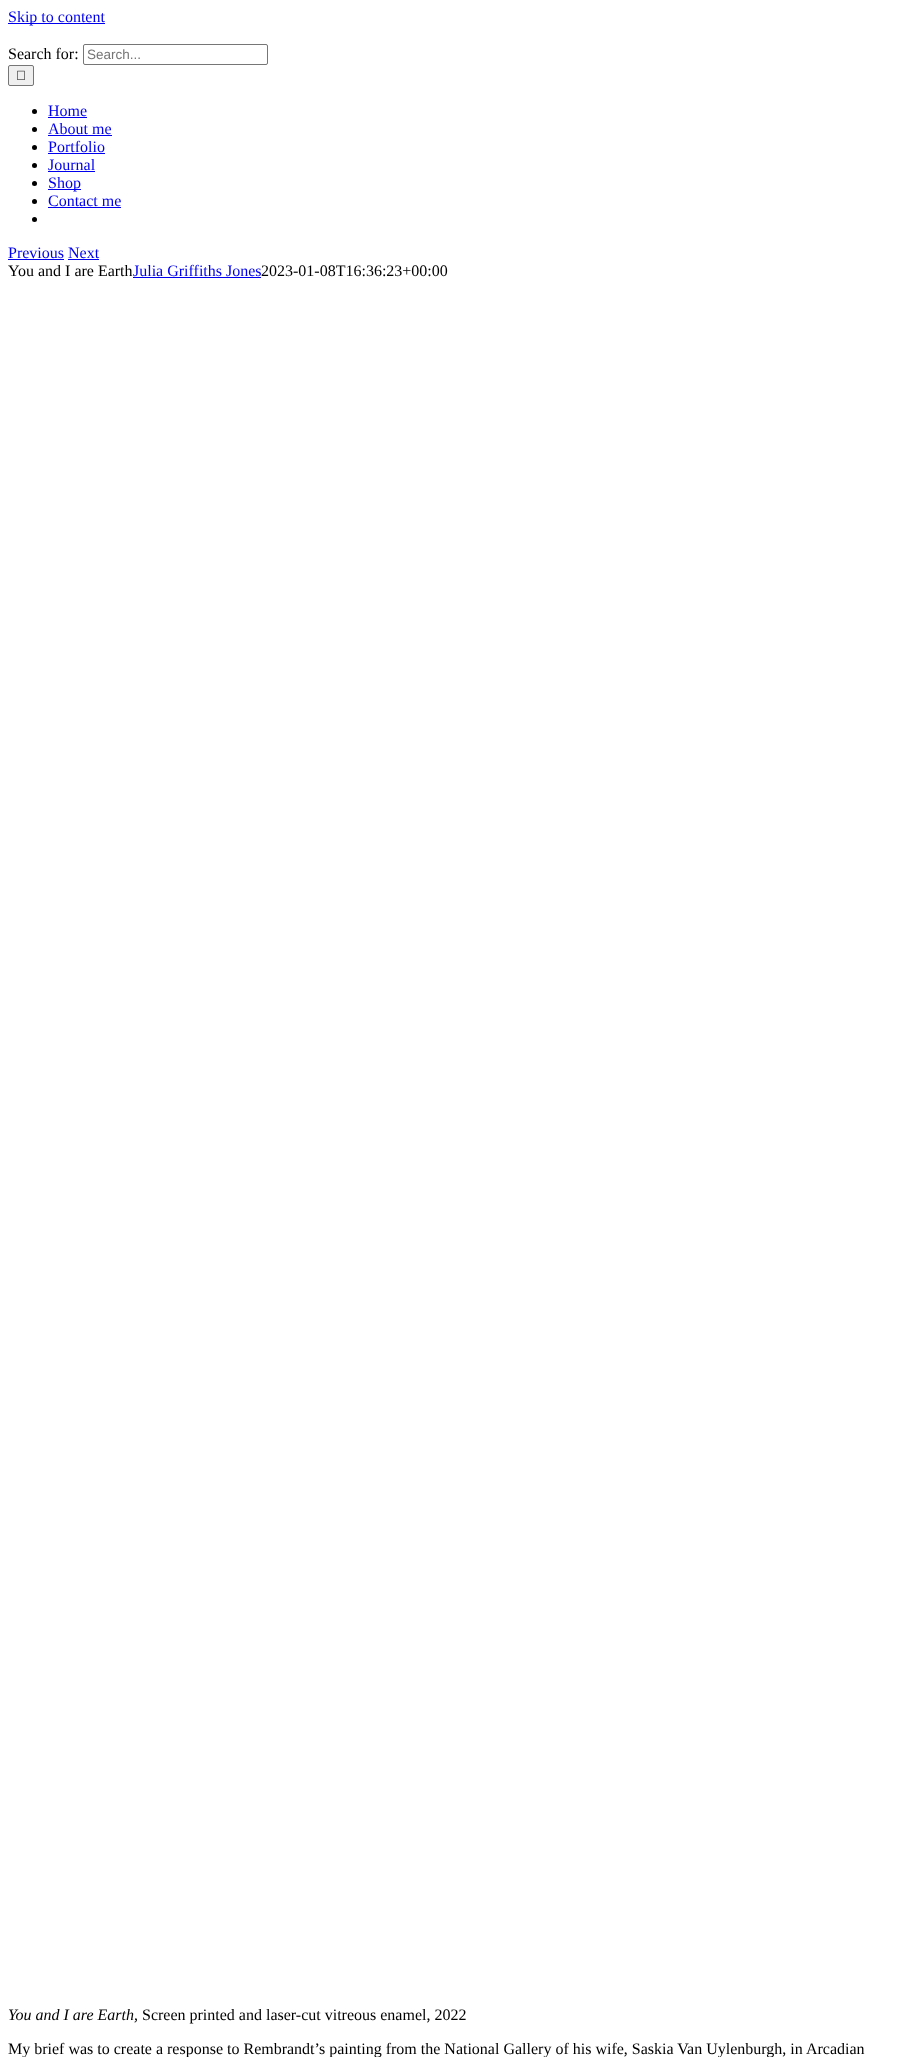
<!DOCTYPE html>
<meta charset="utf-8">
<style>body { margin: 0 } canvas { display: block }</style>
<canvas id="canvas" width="909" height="2057"></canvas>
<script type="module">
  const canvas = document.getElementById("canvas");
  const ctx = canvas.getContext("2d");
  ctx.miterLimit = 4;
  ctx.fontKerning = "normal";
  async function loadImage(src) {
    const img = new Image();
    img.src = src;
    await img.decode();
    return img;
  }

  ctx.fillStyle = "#ffffff";
  ctx.fillRect(0, 0, 909, 2057);
  ctx.fillStyle = "#0000ee";
  ctx.fillRect(8, 23, 97, 1);
  ctx.font = "16px Liberation Serif";
  ctx.fillText("Skip to content", 8, 22);
  ctx.fillStyle = "#000000";
  ctx.fillText("Search for:", 8, 59);
  ctx.beginPath();
  ctx.roundRect(83.5, 44.5, 184, 20, 1.5);
  ctx.strokeStyle = "#767676";
  ctx.stroke();
  ctx.font = "13.5px Liberation Sans";
  ctx.fillStyle = "#757575";
  ctx.fillText("Search...", 87, 59);
  ctx.fillStyle = "#efefef";
  ctx.beginPath();
  ctx.roundRect(8.5, 65.5, 25, 20, 1.5);
  ctx.fill();
  ctx.stroke();
  ctx.drawImage(await loadImage("img1.png"), 17, 70, 8, 10);
  ctx.fillStyle = "#000000";
  ctx.beginPath();
  ctx.arc(34.5, 111.5, 2.5, 0, Math.PI * 2);
  ctx.fill();
  ctx.font = "16px Liberation Serif";
  ctx.fillStyle = "#0000ee";
  ctx.fillText("Home", 48, 116);
  ctx.fillRect(48, 117, 39, 1);
  ctx.fillStyle = "#000000";
  ctx.beginPath();
  ctx.arc(34.5, 129.5, 2.5, 0, Math.PI * 2);
  ctx.fill();
  ctx.fillStyle = "#0000ee";
  ctx.fillText("About me", 48, 134);
  ctx.fillRect(48, 135, 64, 1);
  ctx.fillStyle = "#000000";
  ctx.beginPath();
  ctx.arc(34.5, 147.5, 2.5, 0, Math.PI * 2);
  ctx.fill();
  ctx.fillStyle = "#0000ee";
  ctx.fillText("Portfolio", 48, 152);
  ctx.fillRect(48, 153, 57, 1);
  ctx.fillStyle = "#000000";
  ctx.beginPath();
  ctx.arc(34.5, 165.5, 2.5, 0, Math.PI * 2);
  ctx.fill();
  ctx.fillStyle = "#0000ee";
  ctx.fillText("Journal", 48, 170);
  ctx.fillRect(48, 171, 47, 1);
  ctx.fillStyle = "#000000";
  ctx.beginPath();
  ctx.arc(34.5, 183.5, 2.5, 0, Math.PI * 2);
  ctx.fill();
  ctx.fillStyle = "#0000ee";
  ctx.fillRect(48, 189, 33, 1);
  ctx.fillText("Shop", 48, 188);
  ctx.fillStyle = "#000000";
  ctx.beginPath();
  ctx.arc(34.5, 201.5, 2.5, 0, Math.PI * 2);
  ctx.fill();
  ctx.fillStyle = "#0000ee";
  ctx.fillText("Contact me", 48, 206);
  ctx.fillRect(48, 207, 73, 1);
  ctx.fillStyle = "#000000";
  ctx.beginPath();
  ctx.arc(34.5, 219.5, 2.5, 0, Math.PI * 2);
  ctx.fill();
  ctx.fillStyle = "#0000ee";
  ctx.fillText("Previous Next", 8, 258);
  ctx.fillRect(8, 259, 56, 1);
  ctx.fillRect(68, 259, 31, 1);
  ctx.fillStyle = "#000000";
  ctx.fillText("You and I are Earth", 8, 276);
  ctx.fillStyle = "#0000ee";
  ctx.fillText("Julia Griffiths Jones", 133, 276);
  ctx.fillRect(133, 277, 128, 1);
  ctx.fillStyle = "#000000";
  ctx.fillText("2023-01-08T16:36:23+00:00", 261, 276);
  ctx.font = "italic 16px Liberation Serif";
  ctx.fillText("You and I are Earth,", 8, 2020);
  ctx.font = "16px Liberation Serif";
  ctx.fillText("Screen printed and laser-cut vitreous enamel, 2022", 142, 2020);
  ctx.fillText("My brief was to create a response to Rembrandt’s painting from the National Gallery of his wife, Saskia Van Uylenburgh, in Arcadian", 8, 2054);
</script>
